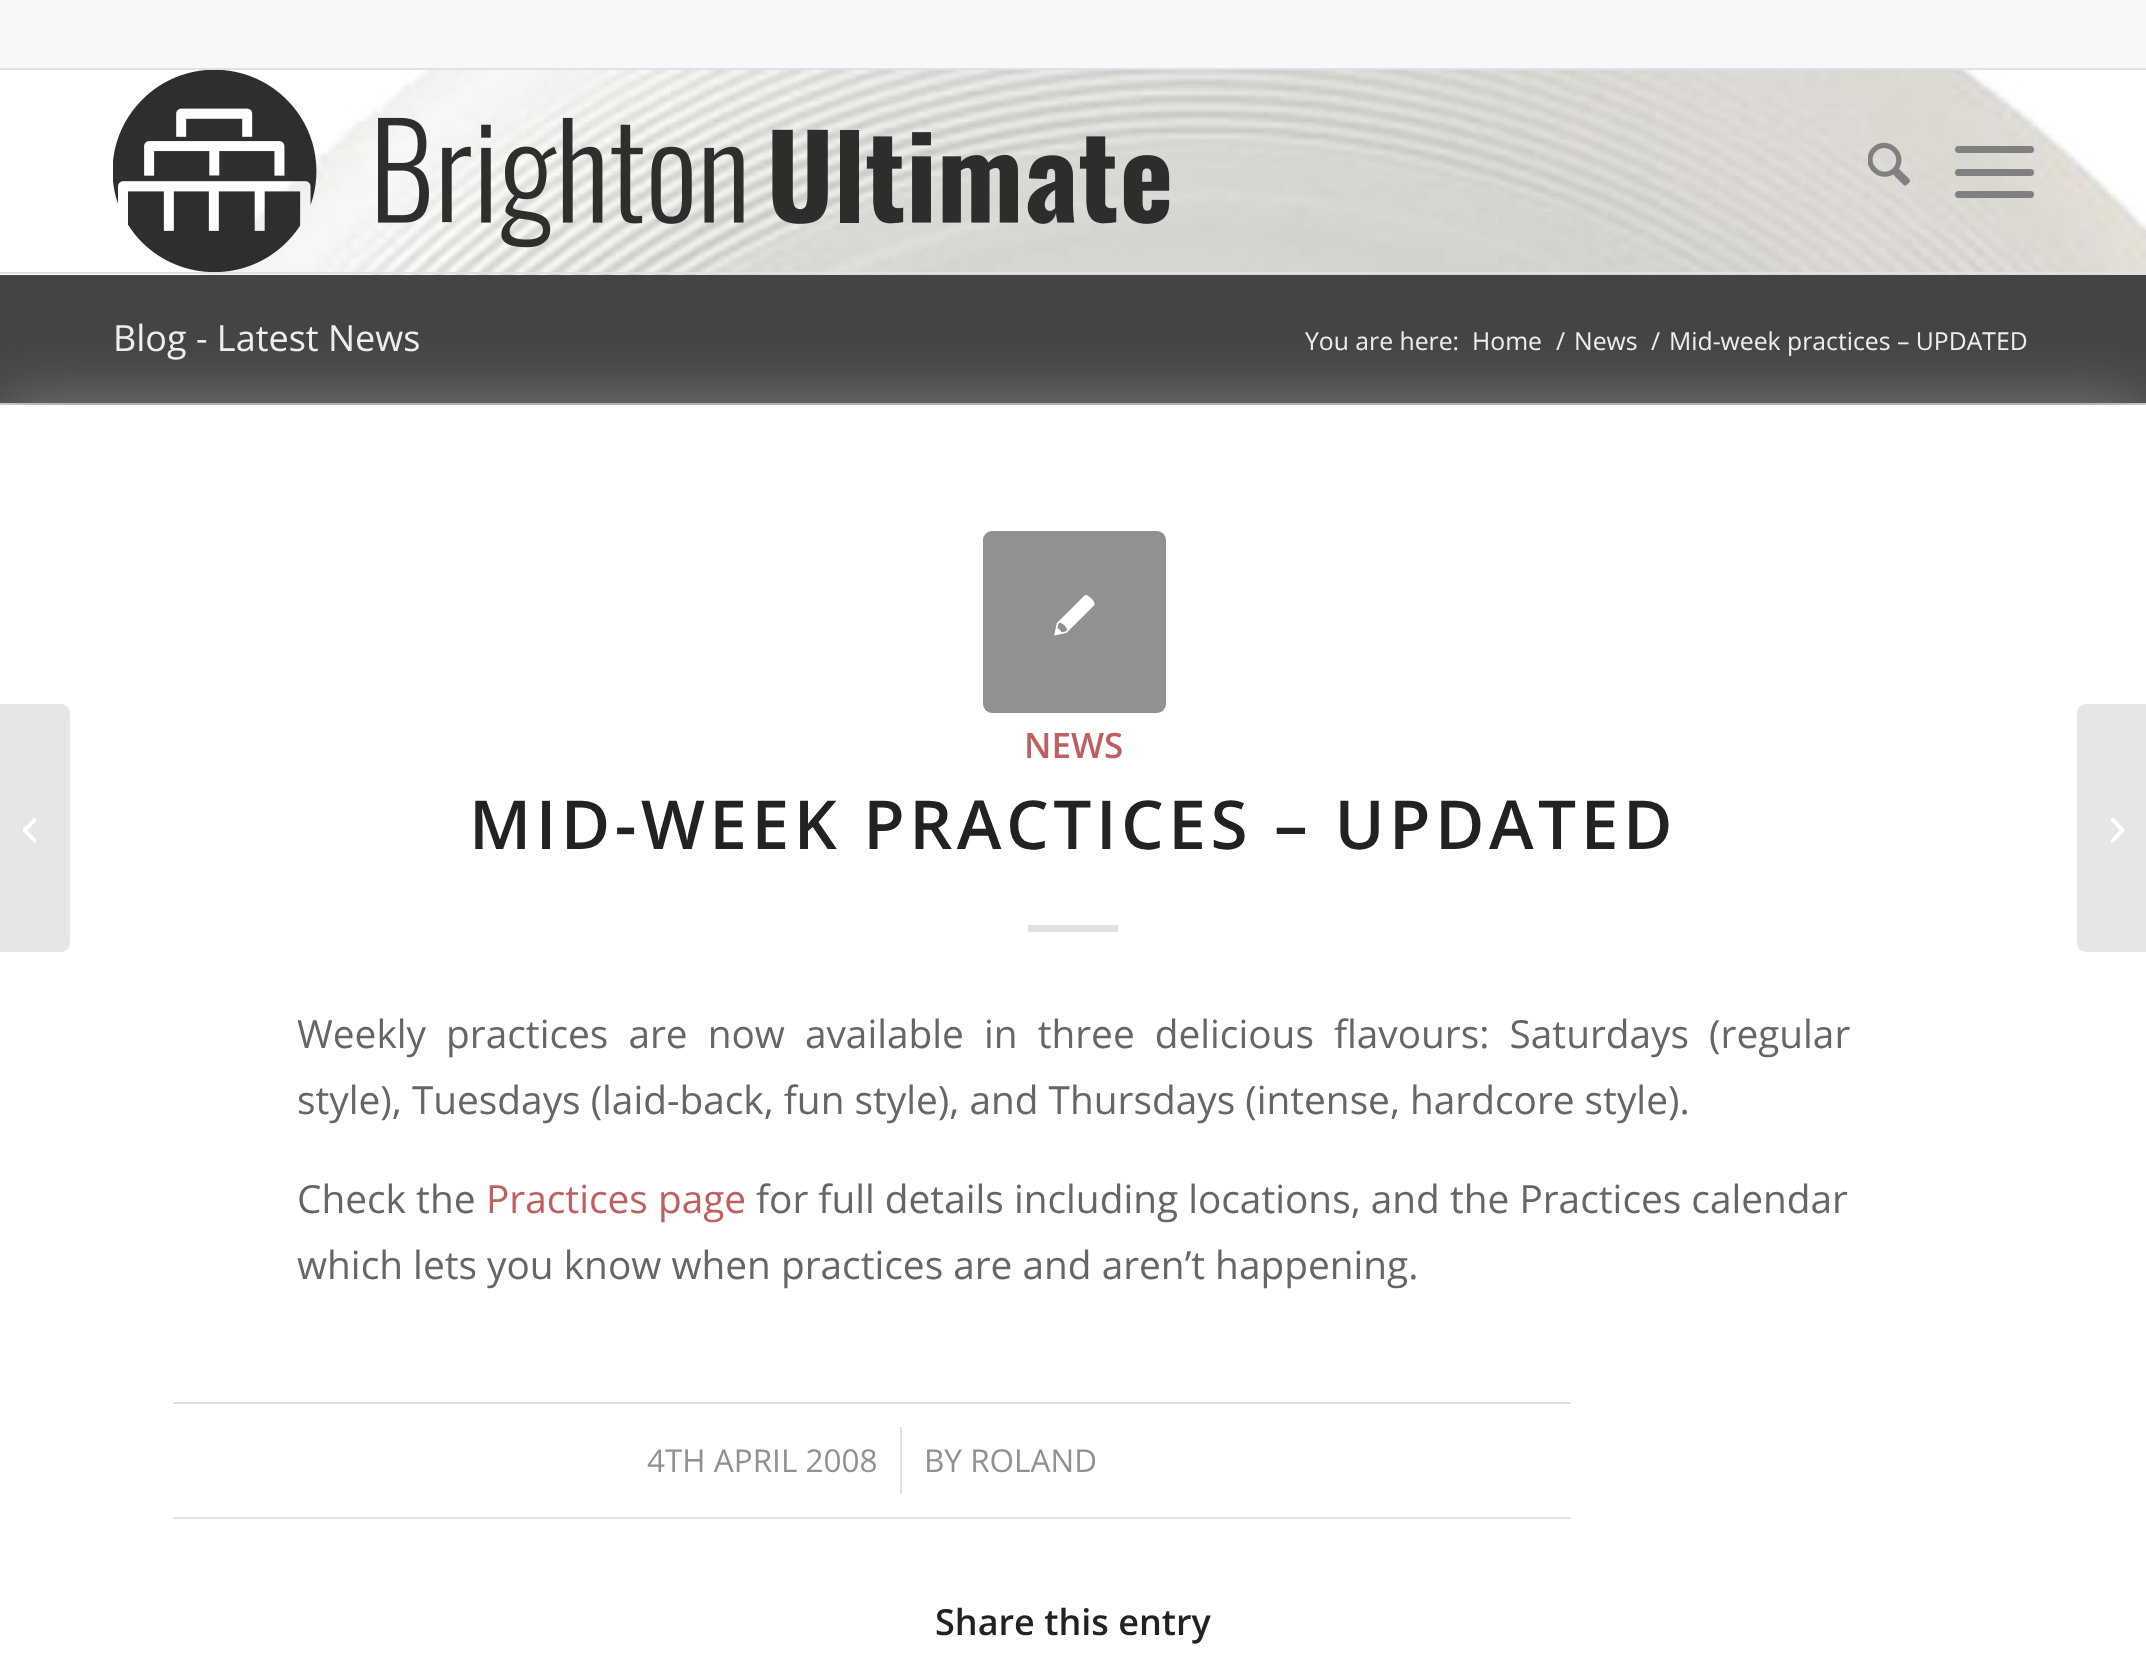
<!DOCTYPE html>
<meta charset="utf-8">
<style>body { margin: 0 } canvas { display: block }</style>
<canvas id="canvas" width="2146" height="1656"></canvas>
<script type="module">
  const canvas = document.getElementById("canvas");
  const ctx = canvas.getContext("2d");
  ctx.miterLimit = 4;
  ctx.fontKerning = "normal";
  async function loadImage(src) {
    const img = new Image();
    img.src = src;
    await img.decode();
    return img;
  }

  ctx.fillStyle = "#ffffff";
  ctx.fillRect(0, 0, 2146, 1656);
  ctx.fillStyle = "#f8f8f8";
  ctx.fillRect(0, 0, 2146, 68);
  ctx.fillStyle = "#e1e1e1";
  ctx.fillRect(0, 68, 2146, 2);
  ctx.drawImage(await loadImage("img3.png"), 203, 70, 1943, 205);
  ctx.fillRect(0, 272, 2146, 2);
  ctx.drawImage(await loadImage("img1.png"), 113, 70, 1057, 202);
  ctx.drawImage(await loadImage("img2.png"), 1868, 142, 42, 44);
  ctx.fillStyle = "#808080";
  ctx.beginPath();
  ctx.roundRect(1955, 169, 79, 7, 3.5);
  ctx.fill();
  ctx.beginPath();
  ctx.roundRect(1955, 146, 79, 7, 3.5);
  ctx.fill();
  ctx.beginPath();
  ctx.roundRect(1955, 191, 79, 7, 3.5);
  ctx.fill();
  ctx.fillStyle = "#444444";
  ctx.fillRect(0, 275, 2146, 128);
  ctx.fillStyle = "#e1e1e1";
  ctx.fillRect(0, 403, 2146, 2);
  ctx.fillStyle = "#808080";
  ctx.filter = "blur(34px)";
  ctx.beginPath();
  ctx.rect(0, 405, 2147, 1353);
  ctx.fill();
  ctx.filter = "none";
  ctx.fillStyle = "#ffffff";
  ctx.fillRect(0, 405, 2146, 1251);
  ctx.fillStyle = "#e6e6e6";
  ctx.beginPath();
  ctx.roundRect(0, 704, 70, 248, [0, 9, 9, 0]);
  ctx.fill();
  ctx.drawImage(await loadImage("img4.png"), 23, 817, 13, 26);
  ctx.font = "36px Open Sans";
  ctx.fillStyle = "#eeeeee";
  ctx.fillText("Blog - Latest News", 113, 351);
  ctx.font = "24.75px Open Sans";
  ctx.fillText("You are here:", 1305, 350);
  ctx.fillText("Home", 1472, 350);
  ctx.fillText("/", 1556, 350);
  ctx.fillText("News", 1574, 350);
  ctx.fillText("/", 1651, 350);
  ctx.fillText("Mid-week practices – UPDATED", 1669, 350);
  ctx.fillStyle = "#919191";
  ctx.beginPath();
  ctx.roundRect(983, 531, 183, 182, 9);
  ctx.fill();
  ctx.drawImage(await loadImage("img5.png"), 1054, 595, 41, 41);
  ctx.font = "600 35px Open Sans";
  ctx.fillStyle = "#c05f5f";
  ctx.fillText("NEWS", 1024, 758);
  ctx.letterSpacing = "4.5px";
  ctx.font = "600 67.5px Open Sans";
  ctx.fillStyle = "#222222";
  ctx.fillText("MID-WEEK PRACTICES – UPDATED", 469, 849);
  ctx.fillStyle = "#e1e1e1";
  ctx.fillRect(1028, 925, 90, 7);
  ctx.letterSpacing = "0px";
  ctx.wordSpacing = "10px";
  ctx.font = "38.8px Open Sans";
  ctx.fillStyle = "#666666";
  ctx.fillText("Weekly practices are now available in three delicious flavours: Saturdays (regular", 297, 1048);
  ctx.wordSpacing = "0px";
  ctx.fillText("style), Tuesdays (laid-back, fun style), and Thursdays (intense, hardcore style).", 297, 1114);
  ctx.fillText("Check the", 297, 1213);
  ctx.fillStyle = "#c05f5f";
  ctx.fillText("Practices page", 486, 1213);
  ctx.fillStyle = "#666666";
  ctx.fillText("for full details including locations, and the Practices calendar", 756, 1213);
  ctx.fillText("which lets you know when practices are and aren’t happening.", 297, 1279);
  ctx.fillStyle = "#e1e1e1";
  ctx.fillRect(173, 1402, 1398, 2);
  ctx.fillRect(173, 1517, 1398, 2);
  ctx.font = "31.5px Open Sans";
  ctx.fillStyle = "#919191";
  ctx.fillText("4TH APRIL 2008", 647, 1472);
  ctx.fillStyle = "#e1e1e1";
  ctx.fillRect(900, 1427, 2, 67);
  ctx.fillStyle = "#919191";
  ctx.fillText("BY ROLAND", 924, 1472);
  ctx.font = "600 36px Open Sans";
  ctx.fillStyle = "#222222";
  ctx.fillText("Share this entry", 935, 1635);
  ctx.fillStyle = "#e6e6e6";
  ctx.beginPath();
  ctx.moveTo(2086, 704);
  ctx.lineTo(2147, 704);
  ctx.lineTo(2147, 952);
  ctx.lineTo(2086, 952);
  ctx.bezierCurveTo(2081, 952, 2077, 948, 2077, 943);
  ctx.lineTo(2077, 713);
  ctx.bezierCurveTo(2077, 708, 2081, 704, 2086, 704);
  ctx.closePath();
  ctx.fill();
  ctx.drawImage(await loadImage("img6.png"), 2111, 817, 13, 26);
</script>
